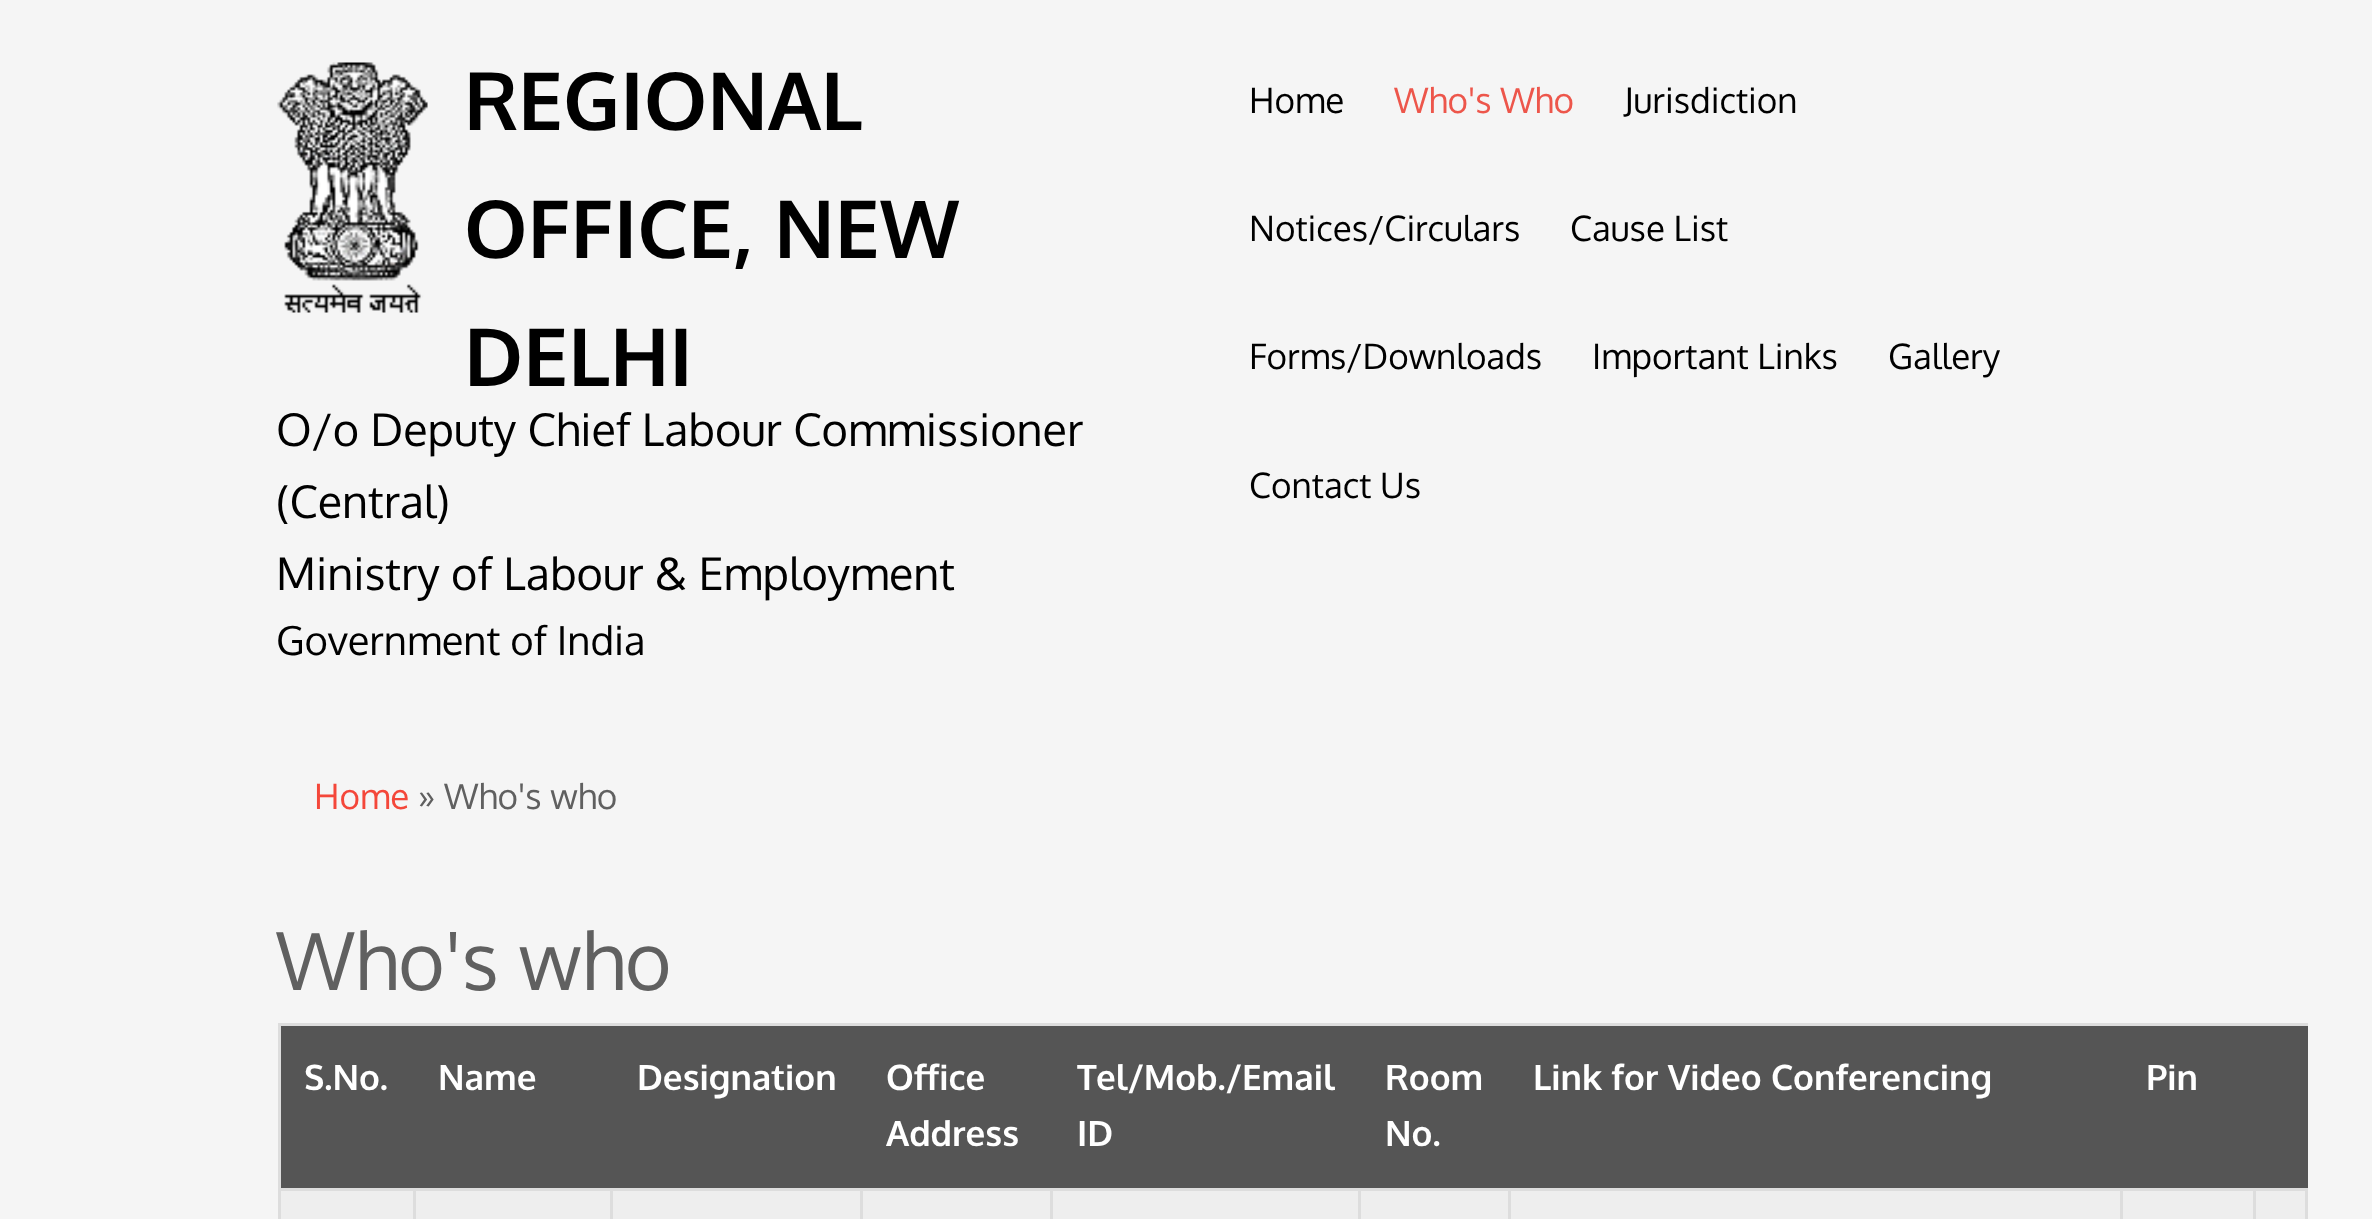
<!DOCTYPE html>
<meta charset="utf-8">
<style>body { margin: 0 } canvas { display: block }</style>
<canvas id="canvas" width="2372" height="1219"></canvas>
<script type="module">
  const canvas = document.getElementById("canvas");
  const ctx = canvas.getContext("2d");
  ctx.miterLimit = 4;
  ctx.fontKerning = "normal";
  async function loadImage(src) {
    const img = new Image();
    img.src = src;
    await img.decode();
    return img;
  }

  ctx.fillStyle = "#f5f5f5";
  ctx.fillRect(0, 0, 2372, 1219);
  ctx.drawImage(await loadImage("img1.png"), 277, 62, 151, 251);
  ctx.font = "bold 80px Oxygen";
  ctx.fillStyle = "#000000";
  ctx.fillText("REGIONAL", 464, 130);
  ctx.fillText("OFFICE, NEW", 464, 258);
  ctx.fillText("DELHI", 464, 386);
  ctx.font = "45px Oxygen";
  ctx.fillText("O/o Deputy Chief Labour Commissioner", 276, 446);
  ctx.fillText("(Central)", 276, 518);
  ctx.fillText("Ministry of Labour & Employment", 276, 590);
  ctx.font = "40px Oxygen";
  ctx.fillText("Government of India", 276, 655);
  ctx.font = "35px Oxygen";
  ctx.fillText("Home", 1249, 113);
  ctx.fillStyle = "#ed564b";
  ctx.fillText("Who's Who", 1394, 113);
  ctx.fillStyle = "#000000";
  ctx.fillText("Jurisdiction", 1624, 113);
  ctx.fillText("Notices/Circulars", 1249, 241);
  ctx.fillText("Cause List", 1570, 241);
  ctx.fillText("Forms/Downloads", 1249, 369);
  ctx.fillText("Important Links", 1592, 369);
  ctx.fillText("Gallery", 1888, 369);
  ctx.fillText("Contact Us", 1249, 498);
  ctx.fillStyle = "#f4473a";
  ctx.fillText("Home", 314, 809);
  ctx.fillStyle = "#606060";
  ctx.fillText("» Who's who", 418, 809);
  ctx.font = "80px Oxygen";
  ctx.fillText("Who's who", 276, 990);
  ctx.fillStyle = "#dddddd";
  ctx.fillRect(278, 1023, 2030, 3);
  ctx.fillRect(278, 1023, 3, 196);
  ctx.fillStyle = "#555555";
  ctx.fillRect(281, 1026, 2027, 162);
  ctx.font = "bold 35px Oxygen";
  ctx.fillStyle = "#ffffff";
  ctx.fillText("S.No.", 304, 1090);
  ctx.fillText("Name", 438, 1090);
  ctx.fillText("Designation", 637, 1090);
  ctx.fillText("Office", 886, 1090);
  ctx.fillText("Address", 886, 1146);
  ctx.fillText("Tel/Mob./Email", 1077, 1090);
  ctx.fillText("ID", 1077, 1146);
  ctx.fillText("Room", 1385, 1090);
  ctx.fillText("No.", 1385, 1146);
  ctx.fillText("Link for Video Conferencing", 1533, 1090);
  ctx.fillText("Pin", 2146, 1090);
  ctx.fillStyle = "#eeeeee";
  ctx.fillRect(281, 1191, 2024, 28);
  ctx.fillStyle = "#dddddd";
  ctx.fillRect(278, 1188, 2030, 3);
  ctx.fillRect(2305, 1188, 3, 31);
  ctx.fillRect(413, 1188, 3, 31);
  ctx.fillRect(610, 1188, 3, 31);
  ctx.fillRect(860, 1188, 3, 31);
  ctx.fillRect(1050, 1188, 3, 31);
  ctx.fillRect(1358, 1188, 3, 31);
  ctx.fillRect(1508, 1188, 3, 31);
  ctx.fillRect(2120, 1188, 3, 31);
  ctx.fillRect(2253, 1188, 3, 31);
</script>
